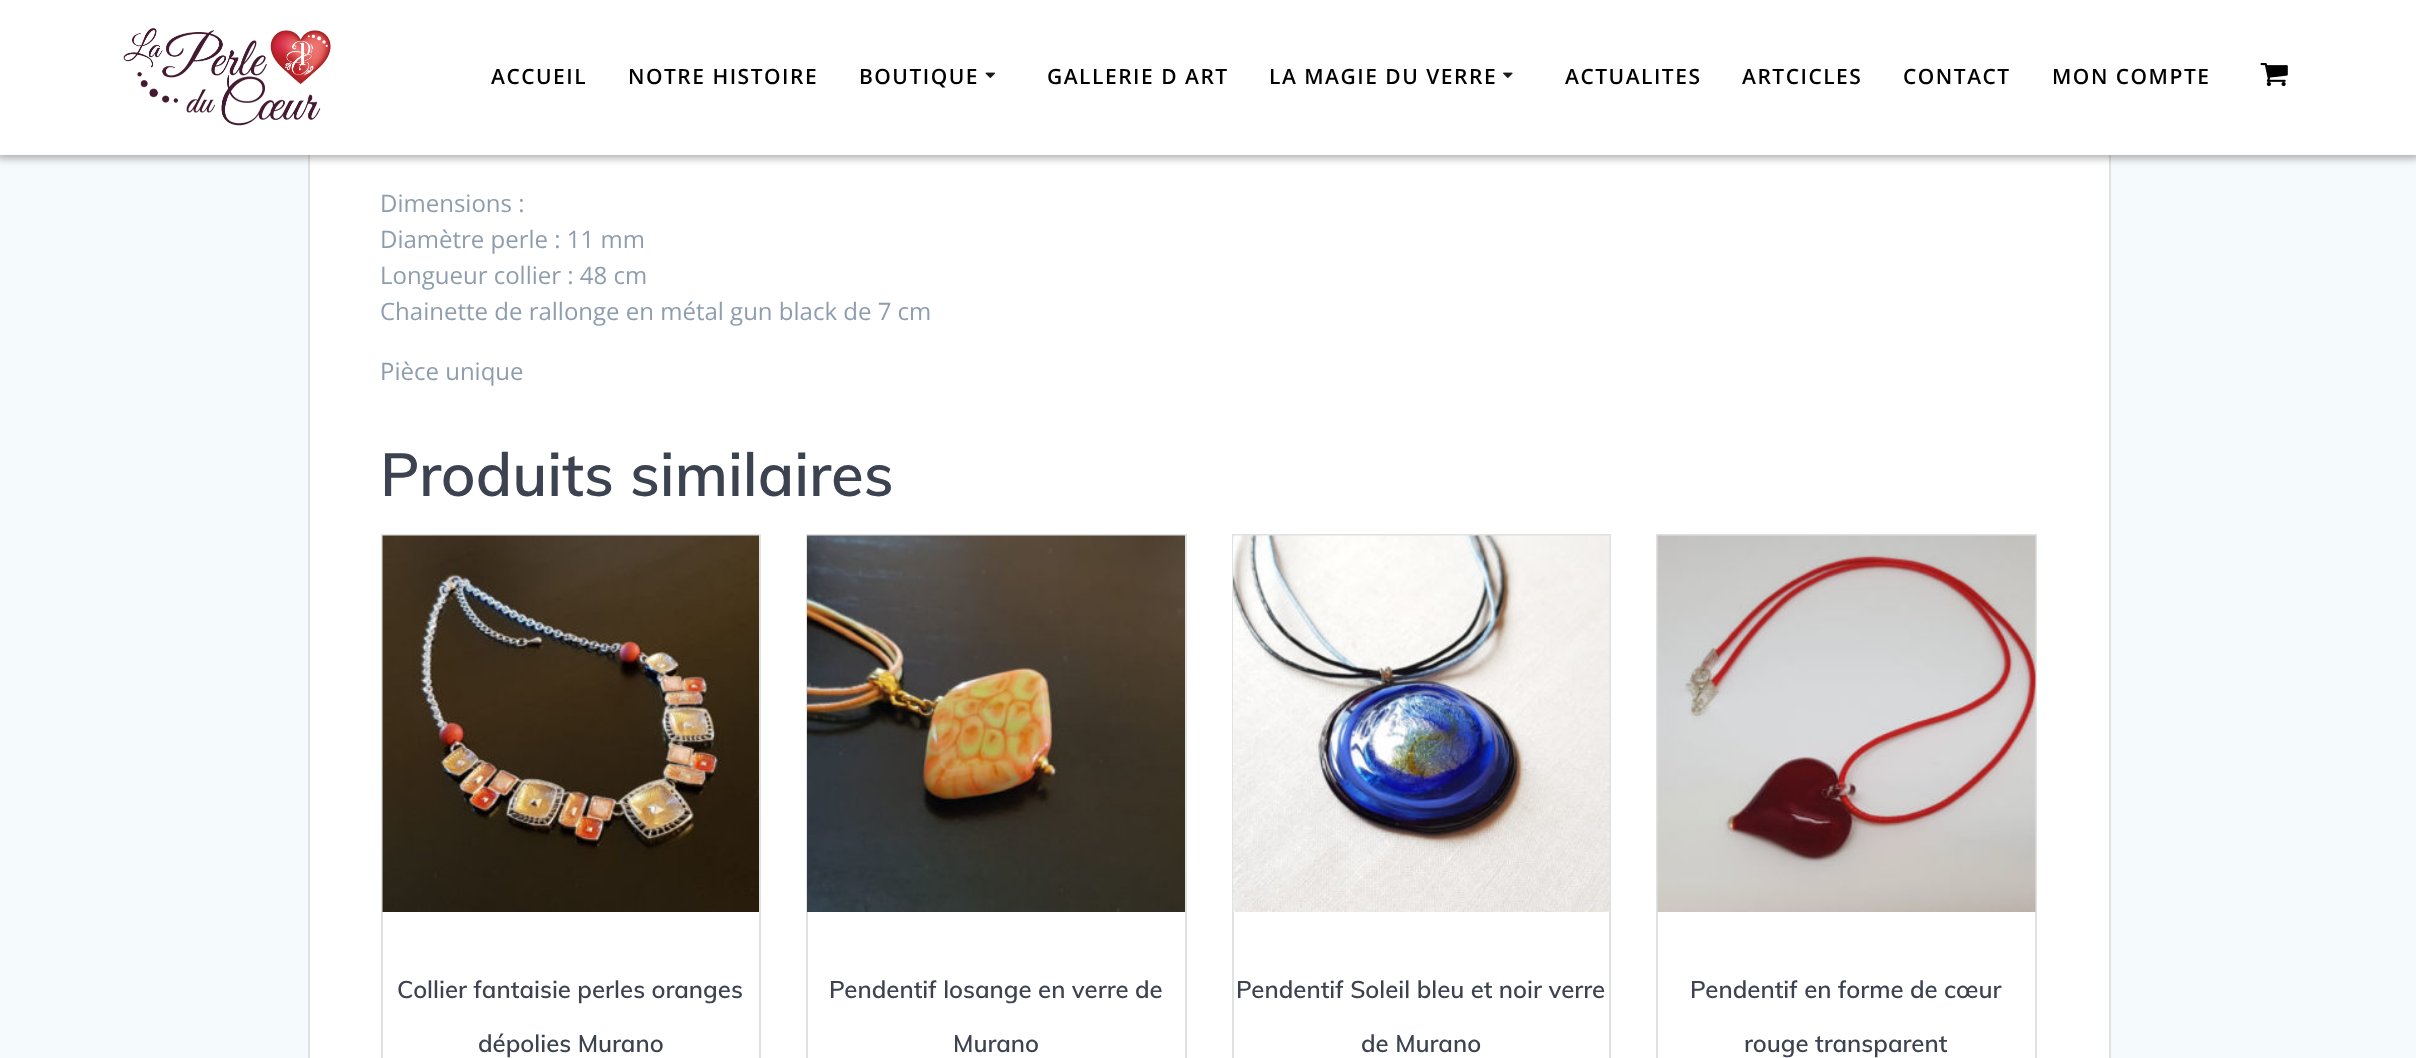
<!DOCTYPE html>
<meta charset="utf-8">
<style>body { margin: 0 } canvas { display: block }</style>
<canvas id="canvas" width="2416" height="1058"></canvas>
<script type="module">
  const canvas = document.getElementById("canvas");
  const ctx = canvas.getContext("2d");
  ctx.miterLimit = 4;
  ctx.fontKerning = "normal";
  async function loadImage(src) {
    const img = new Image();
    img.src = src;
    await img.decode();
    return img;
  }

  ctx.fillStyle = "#f5fafd";
  ctx.fillRect(0, 0, 2416, 1058);
  ctx.fillStyle = "#ffffff";
  ctx.fillRect(310, 155, 1799, 903);
  ctx.strokeStyle = "#e0e1e1";
  ctx.lineWidth = 2;
  ctx.strokeRect(309, -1, 1801, 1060);
  ctx.fillStyle = "rgba(0, 0, 0, 0.33)";
  ctx.filter = "blur(4px)";
  ctx.beginPath();
  ctx.rect(-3, -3, 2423, 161);
  ctx.fill();
  ctx.filter = "none";
  ctx.fillStyle = "#ffffff";
  ctx.fillRect(0, 0, 2416, 155);
  ctx.drawImage(await loadImage("img1.png"), 123, 28, 208, 98);
  ctx.letterSpacing = "1.5px";
  ctx.font = "600 21px Open Sans";
  ctx.fillStyle = "#000000";
  ctx.fillText("ACCUEIL", 491, 84);
  ctx.fillText("NOTRE HISTOIRE", 628, 84);
  ctx.fillText("BOUTIQUE", 859, 84);
  ctx.drawImage(await loadImage("img2.png"), 985, 72, 10, 6);
  ctx.fillText("GALLERIE D ART", 1047, 84);
  ctx.fillText("LA MAGIE DU VERRE", 1269, 84);
  ctx.drawImage(await loadImage("img3.png"), 1503, 72, 10, 6);
  ctx.fillText("ACTUALITES", 1565, 84);
  ctx.fillText("ARTCICLES", 1742, 84);
  ctx.fillText("CONTACT", 1903, 84);
  ctx.fillText("MON COMPTE", 2052, 84);
  ctx.drawImage(await loadImage("img4.png"), 2260, 63, 28, 24);
  ctx.letterSpacing = "0px";
  ctx.font = "24px Open Sans";
  ctx.fillStyle = "#8e9dae";
  ctx.fillText("Dimensions :", 380, 212);
  ctx.fillText("Diamètre perle : 11 mm", 380, 248);
  ctx.fillText("Longueur collier : 48 cm", 380, 284);
  ctx.fillText("Chainette de rallonge en métal gun black de 7 cm", 380, 320);
  ctx.fillText("Pièce unique", 380, 380);
  ctx.font = "600 60px Muli";
  ctx.fillStyle = "#3c424f";
  ctx.fillText("Produits similaires", 380, 496);
  ctx.strokeRect(382, 535, 378, 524);
  ctx.drawImage(await loadImage("img5.png"), 382, 535, 377, 377);
  ctx.font = "600 24px Muli";
  ctx.fillText("Collier fantaisie perles oranges", 397, 998);
  ctx.fillText("dépolies Murano", 478, 1052);
  ctx.strokeRect(807, 535, 379, 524);
  ctx.drawImage(await loadImage("img6.png"), 807, 535, 378, 377);
  ctx.fillText("Pendentif losange en verre de", 829, 998);
  ctx.fillText("Murano", 953, 1052);
  ctx.strokeRect(1233, 535, 377, 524);
  ctx.drawImage(await loadImage("img7.png"), 1233, 535, 377, 377);
  ctx.fillText("Pendentif Soleil bleu et noir verre", 1236, 998);
  ctx.fillText("de Murano", 1361, 1052);
  ctx.strokeRect(1657, 535, 379, 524);
  ctx.drawImage(await loadImage("img8.png"), 1657, 535, 379, 377);
  ctx.fillText("Pendentif en forme de cœur", 1690, 998);
  ctx.fillText("rouge transparent", 1744, 1052);
</script>
